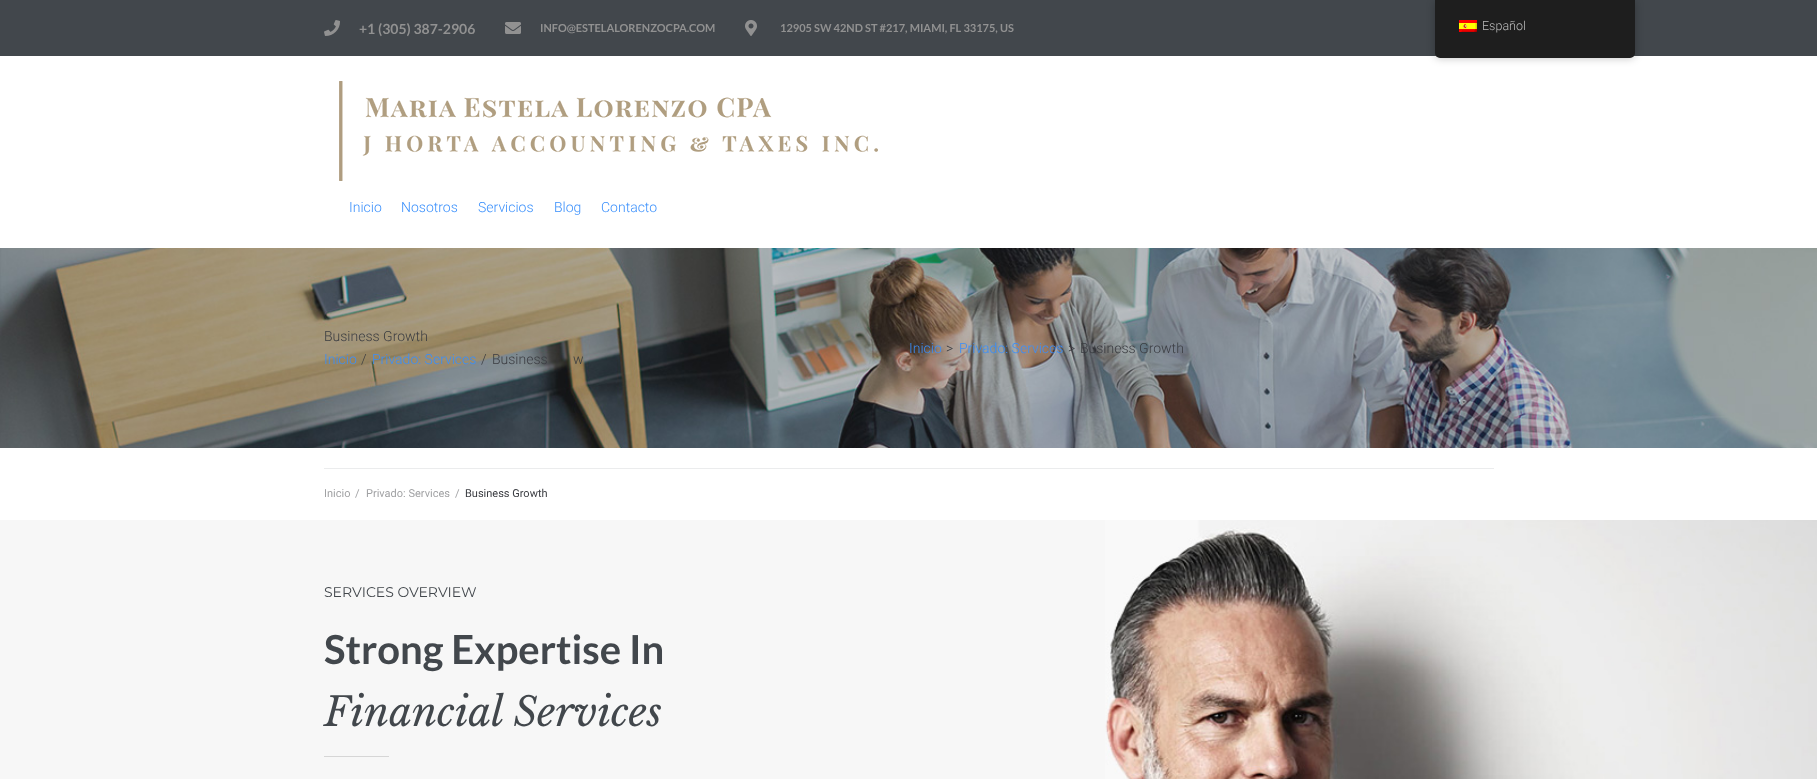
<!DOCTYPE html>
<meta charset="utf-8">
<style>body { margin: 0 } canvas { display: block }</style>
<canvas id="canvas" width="1817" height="779"></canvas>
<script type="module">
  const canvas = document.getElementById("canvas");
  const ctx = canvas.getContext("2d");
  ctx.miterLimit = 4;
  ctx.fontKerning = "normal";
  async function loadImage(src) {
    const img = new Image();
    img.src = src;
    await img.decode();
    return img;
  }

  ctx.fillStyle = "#ffffff";
  ctx.fillRect(0, 0, 1817, 779);
  ctx.fillStyle = "#42474c";
  ctx.fillRect(0, 0, 1817, 56);
  ctx.drawImage(await loadImage("img1.png"), 324, 20, 16, 16);
  ctx.font = "bold 14px Lato";
  ctx.fillStyle = "#919191";
  ctx.fillText("+1 (305) 387-2906", 359, 34);
  ctx.drawImage(await loadImage("img2.png"), 505, 22, 16, 12);
  ctx.font = "bold 11px Lato";
  ctx.fillText("INFO@ESTELALORENZOCPA.COM", 540, 32);
  ctx.drawImage(await loadImage("img3.png"), 745, 20, 12, 16);
  ctx.fillText("12905 SW 42ND ST #217, MIAMI, FL 33175, US", 780, 32);
  ctx.drawImage(await loadImage("img4.png"), 339, 81, 539, 100);
  ctx.font = "300 14px Roboto";
  ctx.fillStyle = "#398ffc";
  ctx.fillText("Inicio", 349, 212);
  ctx.fillText("Nosotros", 401, 212);
  ctx.fillText("Servicios", 478, 212);
  ctx.fillText("Blog", 554, 212);
  ctx.fillText("Contacto", 601, 212);
  ctx.drawImage(await loadImage("img5.png"), 0, 248, 1817, 200);
  ctx.fillStyle = "#3b3d42";
  ctx.fillText("Business Growth", 324, 341);
  ctx.fillStyle = "#398ffc";
  ctx.fillText("Inicio", 324, 364);
  ctx.fillStyle = "#3b3d42";
  ctx.fillText("/", 361, 364);
  ctx.fillStyle = "#398ffc";
  ctx.fillText("Privado: Services", 372, 364);
  ctx.fillStyle = "#3b3d42";
  ctx.fillText("/", 481, 364);
  ctx.fillText("Business", 492, 364);
  ctx.fillText("w", 573, 364);
  ctx.fillStyle = "#398ffc";
  ctx.fillText("Inicio", 909, 353);
  ctx.fillStyle = "#3b3d42";
  ctx.fillText(">", 946, 353);
  ctx.fillStyle = "#398ffc";
  ctx.fillText("Privado: Services", 959, 353);
  ctx.fillStyle = "#3b3d42";
  ctx.fillText(">", 1068, 353);
  ctx.fillText("Business Growth", 1080, 353);
  ctx.fillStyle = "#ebeced";
  ctx.fillRect(324, 468, 1170, 1);
  ctx.font = "11px Roboto";
  ctx.fillStyle = "#a1a2a4";
  ctx.fillText("Inicio", 324, 497);
  ctx.fillText("/", 355, 497);
  ctx.fillText("Privado: Services", 366, 497);
  ctx.fillText("/", 455, 497);
  ctx.fillStyle = "#3b3d42";
  ctx.fillText("Business Growth", 465, 497);
  ctx.fillStyle = "#f7f7f7";
  ctx.fillRect(0, 520, 1105, 259);
  ctx.drawImage(await loadImage("img6.png"), 1105, 520, 712, 259);
  ctx.font = "14px Montserrat";
  ctx.fillStyle = "#42474c";
  ctx.fillText("SERVICES OVERVIEW", 324, 597);
  ctx.font = "bold 40px Lato";
  ctx.fillText("Strong Expertise In", 324, 664);
  ctx.font = "italic 40px Libre Baskerville";
  ctx.fillText("Financial Services", 324, 726);
  ctx.fillStyle = "#d6d6d6";
  ctx.fillRect(324, 756, 65, 1);
  ctx.fillStyle = "rgba(0, 0, 0, 0.25)";
  ctx.filter = "blur(4px)";
  ctx.beginPath();
  ctx.roundRect(1435, 0, 200, 58, 5);
  ctx.fill();
  ctx.filter = "none";
  ctx.fillStyle = "#1e1e1e";
  ctx.beginPath();
  ctx.roundRect(1435, 0, 200, 58, [0, 0, 5, 5]);
  ctx.fill();
  ctx.drawImage(await loadImage("img7.png"), 1459, 20, 18, 12);
  ctx.font = "300 12.5px Roboto";
  ctx.fillStyle = "#bdbdbd";
  ctx.fillText("Español", 1482, 30);
</script>
